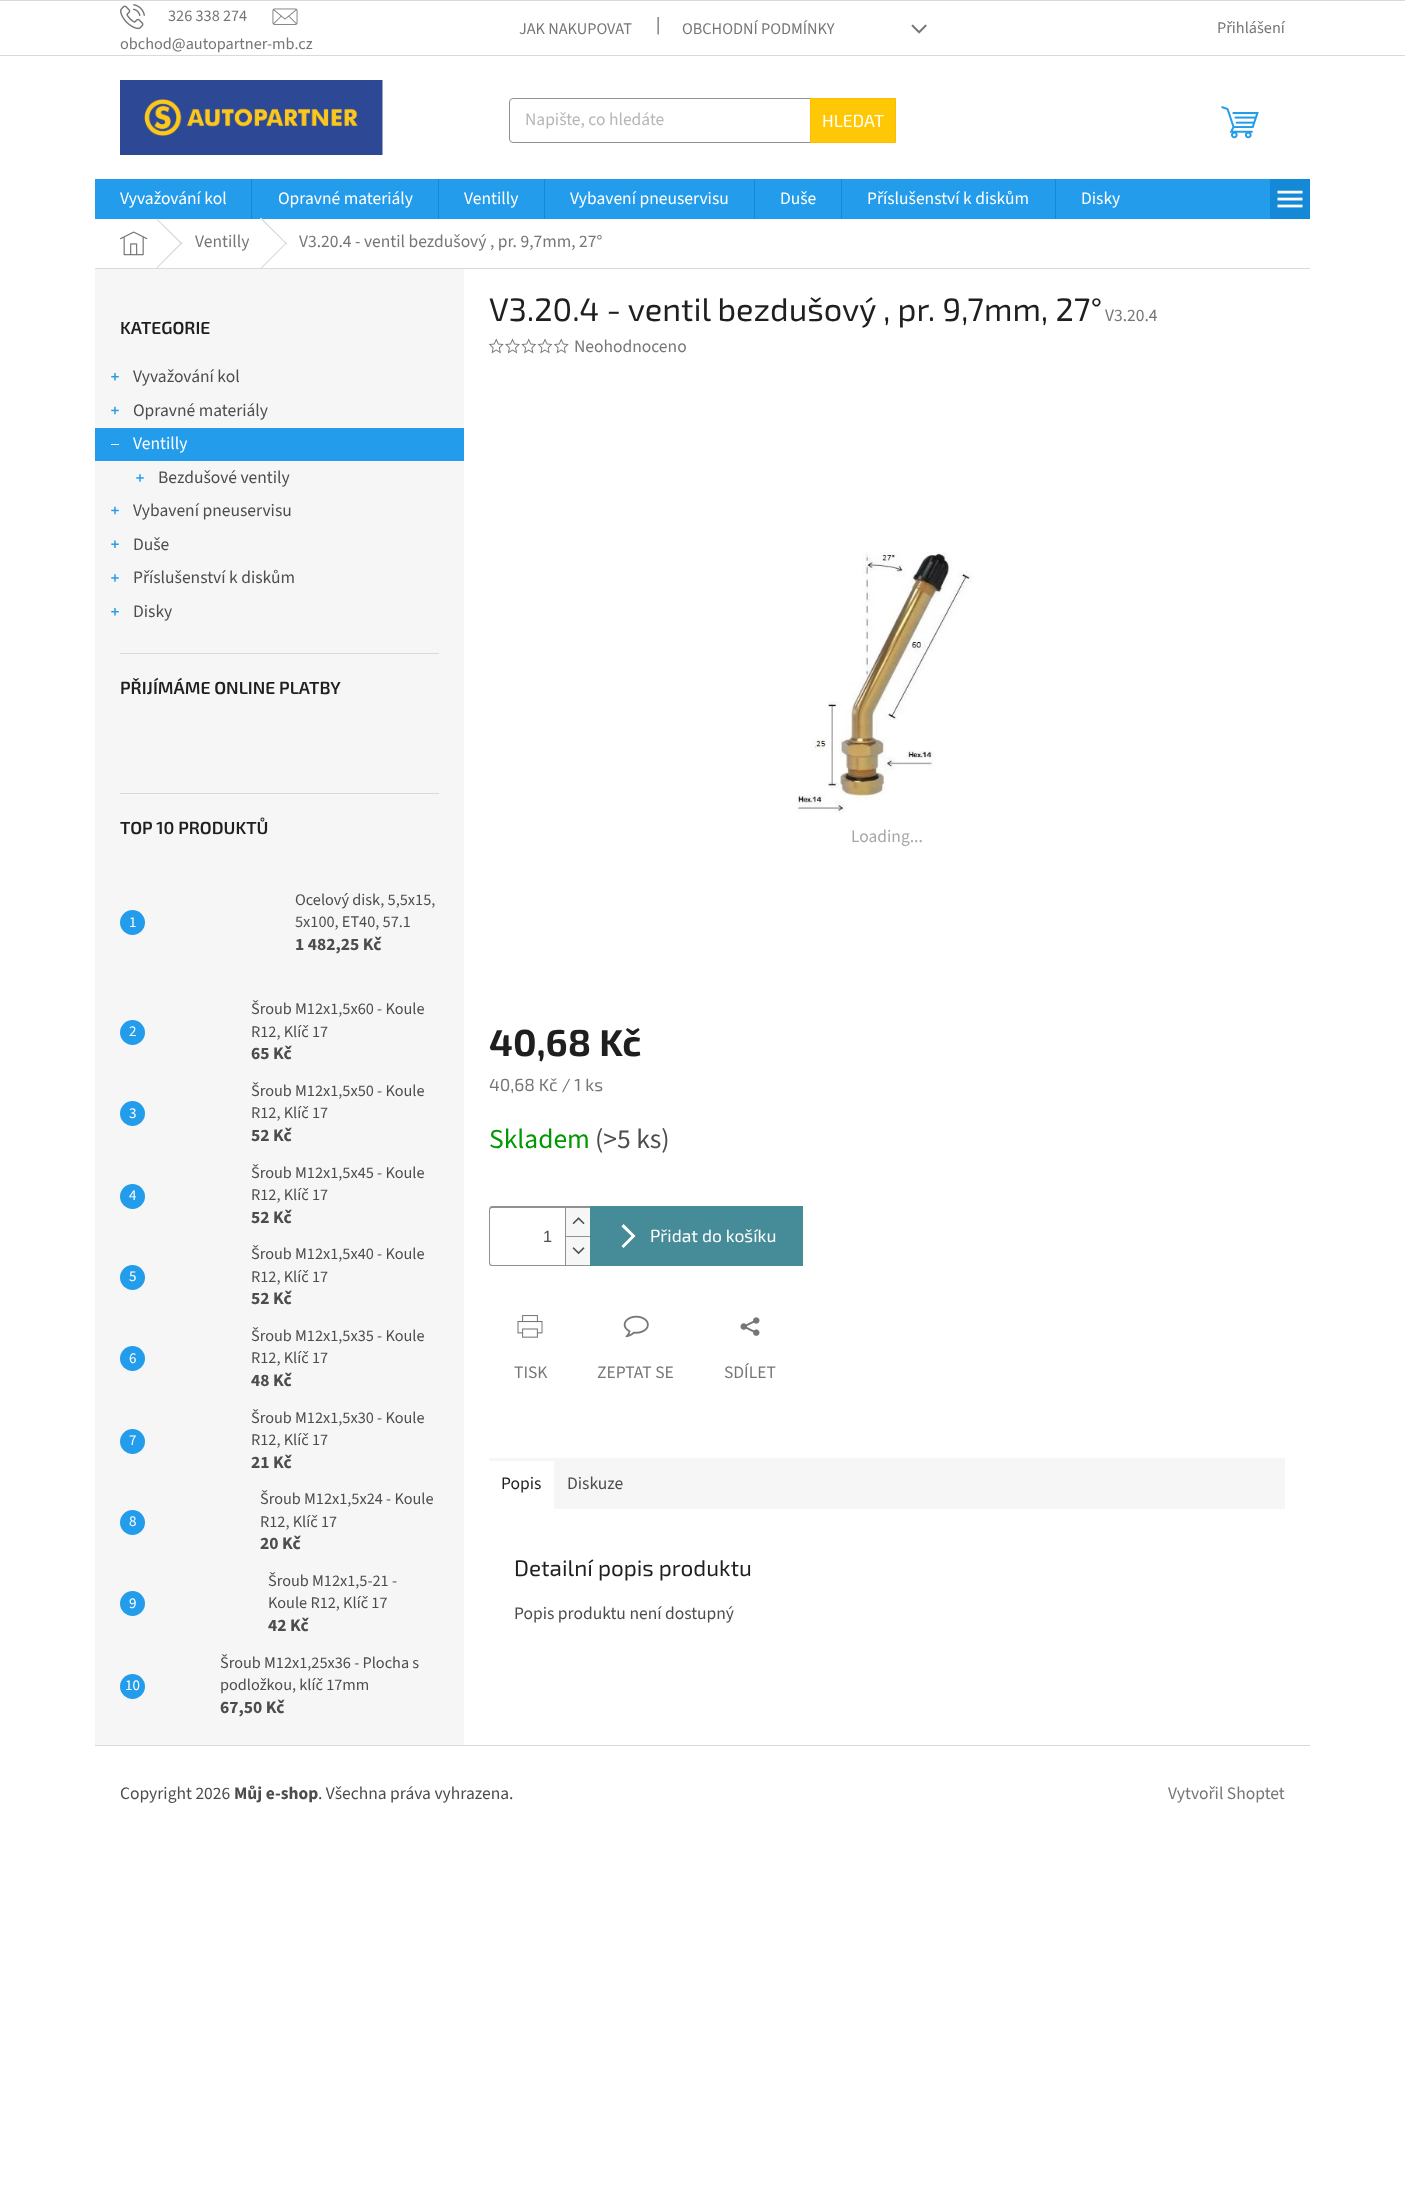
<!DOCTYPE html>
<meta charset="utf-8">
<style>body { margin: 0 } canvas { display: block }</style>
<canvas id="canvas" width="1423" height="2210"></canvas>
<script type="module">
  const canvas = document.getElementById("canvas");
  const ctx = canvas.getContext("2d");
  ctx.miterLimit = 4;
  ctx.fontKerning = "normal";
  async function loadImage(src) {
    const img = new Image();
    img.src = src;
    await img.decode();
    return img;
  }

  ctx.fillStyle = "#ffffff";
  ctx.fillRect(0, 0, 1423, 2210);
  ctx.fillStyle = "#dadada";
  ctx.fillRect(0, 0, 1405, 1);
  ctx.fillRect(0, 55, 1405, 1);
  ctx.drawImage(await loadImage("img1.png"), 120, 4, 25, 26);
  ctx.font = "16.25px 'Source Sans 3'";
  ctx.fillStyle = "#767676";
  ctx.fillText("326 338 274", 168, 21);
  ctx.drawImage(await loadImage("img2.png"), 272, 8, 26, 17);
  ctx.fillText("obchod@autopartner-mb.cz", 120, 49);
  ctx.fillText("JAK NAKUPOVAT", 519, 34);
  ctx.font = "17.5px 'Source Sans 3'";
  ctx.fillStyle = "#4d4d4d";
  ctx.fillText("|", 656, 30);
  ctx.font = "16.25px 'Source Sans 3'";
  ctx.fillStyle = "#767676";
  ctx.fillText("OBCHODNÍ PODMÍNKY", 682, 34);
  ctx.drawImage(await loadImage("img3.png"), 911, 24, 16, 10);
  ctx.fillText("Přihlášení", 1217, 33);
  ctx.drawImage(await loadImage("img4.png"), 120, 80, 263, 75);
  ctx.beginPath();
  ctx.roundRect(509.5, 98.5, 386, 44, 3.5);
  ctx.strokeStyle = "#919191";
  ctx.stroke();
  ctx.font = "17.5px 'Source Sans 3'";
  ctx.fillStyle = "#b6b6b6";
  ctx.fillText("Napište, co hledáte", 525, 125);
  ctx.fillStyle = "#ffc807";
  ctx.beginPath();
  ctx.rect(810.5, 98.5, 85, 44);
  ctx.fill();
  ctx.strokeStyle = "#ffbb00";
  ctx.stroke();
  ctx.font = "17.5px 'Exo 2'";
  ctx.fillStyle = "#ffffff";
  ctx.fillText("HLEDAT", 822, 127);
  ctx.drawImage(await loadImage("img5.png"), 1221, 106, 38, 33);
  ctx.fillStyle = "#239ceb";
  ctx.fillRect(95, 179, 1175, 40);
  ctx.font = "17.5px 'Source Sans 3'";
  ctx.fillStyle = "#ffffff";
  ctx.fillText("Vyvažování kol", 120, 204);
  ctx.fillStyle = "#1489d7";
  ctx.fillRect(251, 179, 1, 40);
  ctx.fillStyle = "#ffffff";
  ctx.fillText("Opravné materiály", 278, 204);
  ctx.fillStyle = "#1489d7";
  ctx.fillRect(438, 179, 1, 40);
  ctx.fillStyle = "#ffffff";
  ctx.fillText("Ventilly", 464, 204);
  ctx.fillStyle = "#1489d7";
  ctx.fillRect(544, 179, 1, 40);
  ctx.fillStyle = "#ffffff";
  ctx.fillText("Vybavení pneuservisu", 570, 204);
  ctx.fillStyle = "#1489d7";
  ctx.fillRect(754, 179, 1, 40);
  ctx.fillStyle = "#ffffff";
  ctx.fillText("Duše", 780, 204);
  ctx.fillStyle = "#1489d7";
  ctx.fillRect(841, 179, 1, 40);
  ctx.fillStyle = "#ffffff";
  ctx.fillText("Příslušenství k diskům", 867, 204);
  ctx.fillStyle = "#1489d7";
  ctx.fillRect(1055, 179, 1, 40);
  ctx.fillStyle = "#ffffff";
  ctx.fillText("Disky", 1081, 204);
  ctx.fillStyle = "#1489d7";
  ctx.fillRect(1270, 179, 40, 40);
  ctx.drawImage(await loadImage("img6.png"), 1277, 190, 26, 18);
  ctx.fillStyle = "#dadada";
  ctx.fillRect(95, 268, 1215, 1);
  ctx.drawImage(await loadImage("img7.png"), 120, 231, 28, 25);
  ctx.beginPath();
  ctx.moveTo(156.5, 219.5);
  ctx.lineTo(157, 218.5);
  ctx.lineTo(182.5, 243.5);
  ctx.lineTo(181.5, 244.5);
  ctx.closePath();
  ctx.fill();
  ctx.beginPath();
  ctx.moveTo(181.5, 242);
  ctx.lineTo(182.5, 243);
  ctx.lineTo(157, 268.5);
  ctx.lineTo(156.5, 267.5);
  ctx.closePath();
  ctx.fill();
  ctx.fillStyle = "#767676";
  ctx.fillText("Ventilly", 195, 247);
  ctx.fillStyle = "#dadada";
  ctx.beginPath();
  ctx.moveTo(260, 218.5);
  ctx.lineTo(261, 217.5);
  ctx.lineTo(287, 243.5);
  ctx.lineTo(286.5, 244.5);
  ctx.closePath();
  ctx.fill();
  ctx.beginPath();
  ctx.moveTo(286.5, 242);
  ctx.lineTo(287, 243);
  ctx.lineTo(261, 269);
  ctx.lineTo(260, 268.5);
  ctx.closePath();
  ctx.fill();
  ctx.fillStyle = "#767676";
  ctx.fillText("V3.20.4 - ventil bezdušový , pr. 9,7mm, 27°", 299, 247);
  ctx.fillStyle = "#f6f6f6";
  ctx.fillRect(95, 269, 369, 1476);
  ctx.fillStyle = "#dadada";
  ctx.fillRect(120, 653, 319, 1);
  ctx.font = "600 17.5px 'Exo 2'";
  ctx.fillStyle = "#1f1f1f";
  ctx.fillText("KATEGORIE", 120, 334);
  ctx.drawImage(await loadImage("img8.png"), 111, 373, 8, 8);
  ctx.font = "17.5px 'Source Sans 3'";
  ctx.fillStyle = "#4d4d4d";
  ctx.fillText("Vyvažování kol", 133, 382);
  ctx.drawImage(await loadImage("img9.png"), 111, 406, 8, 9);
  ctx.fillText("Opravné materiály", 133, 416);
  ctx.fillStyle = "#239ceb";
  ctx.fillRect(95, 428, 369, 33);
  ctx.fillStyle = "#ffffff";
  ctx.fillRect(111, 444, 8, 1);
  ctx.fillText("Ventilly", 133, 449);
  ctx.drawImage(await loadImage("img10.png"), 136, 474, 8, 8);
  ctx.fillStyle = "#4d4d4d";
  ctx.fillText("Bezdušové ventily", 158, 483);
  ctx.drawImage(await loadImage("img9.png"), 111, 506, 8, 9);
  ctx.fillText("Vybavení pneuservisu", 133, 516);
  ctx.drawImage(await loadImage("img11.png"), 111, 540, 8, 8);
  ctx.fillText("Duše", 133, 550);
  ctx.drawImage(await loadImage("img10.png"), 111, 574, 8, 8);
  ctx.fillText("Příslušenství k diskům", 133, 583);
  ctx.drawImage(await loadImage("img8.png"), 111, 608, 8, 8);
  ctx.fillText("Disky", 133, 617);
  ctx.fillStyle = "#dadada";
  ctx.fillRect(120, 793, 319, 1);
  ctx.font = "600 17.5px 'Exo 2'";
  ctx.fillStyle = "#1f1f1f";
  ctx.fillText("PŘIJÍMÁME ONLINE PLATBY", 120, 694);
  ctx.fillText("TOP 10 PRODUKTŮ", 120, 834);
  ctx.fillStyle = "#239ceb";
  ctx.beginPath();
  ctx.arc(132.5, 922.5, 12.5, 0, Math.PI * 2);
  ctx.fill();
  ctx.font = "15px 'Source Sans 3'";
  ctx.fillStyle = "#ffffff";
  ctx.fillText("1", 129, 927);
  ctx.font = "16.25px 'Source Sans 3'";
  ctx.fillStyle = "#4d4d4d";
  ctx.fillText("Ocelový disk, 5,5x15,", 295, 905);
  ctx.fillText("5x100, ET40, 57.1", 295, 927);
  ctx.font = "bold 17.5px 'Source Sans 3'";
  ctx.fillText("1 482,25 Kč", 295, 950);
  ctx.fillStyle = "#239ceb";
  ctx.beginPath();
  ctx.arc(132.5, 1032.5, 12.5, 0, Math.PI * 2);
  ctx.fill();
  ctx.font = "15px 'Source Sans 3'";
  ctx.fillStyle = "#ffffff";
  ctx.fillText("2", 129, 1036);
  ctx.font = "16.25px 'Source Sans 3'";
  ctx.fillStyle = "#4d4d4d";
  ctx.fillText("Šroub M12x1,5x60 - Koule", 251, 1014);
  ctx.fillText("R12, Klíč 17", 251, 1037);
  ctx.font = "bold 17.5px 'Source Sans 3'";
  ctx.fillText("65 Kč", 251, 1059);
  ctx.fillStyle = "#239ceb";
  ctx.beginPath();
  ctx.arc(132.5, 1113.5, 12.5, 0, Math.PI * 2);
  ctx.fill();
  ctx.font = "15px 'Source Sans 3'";
  ctx.fillStyle = "#ffffff";
  ctx.fillText("3", 129, 1118);
  ctx.font = "16.25px 'Source Sans 3'";
  ctx.fillStyle = "#4d4d4d";
  ctx.fillText("Šroub M12x1,5x50 - Koule", 251, 1096);
  ctx.fillText("R12, Klíč 17", 251, 1118);
  ctx.font = "bold 17.5px 'Source Sans 3'";
  ctx.fillText("52 Kč", 251, 1141);
  ctx.fillStyle = "#239ceb";
  ctx.beginPath();
  ctx.arc(132.5, 1196.5, 12.5, 0, Math.PI * 2);
  ctx.fill();
  ctx.font = "15px 'Source Sans 3'";
  ctx.fillStyle = "#ffffff";
  ctx.fillText("4", 129, 1200);
  ctx.font = "16.25px 'Source Sans 3'";
  ctx.fillStyle = "#4d4d4d";
  ctx.fillText("Šroub M12x1,5x45 - Koule", 251, 1178);
  ctx.fillText("R12, Klíč 17", 251, 1200);
  ctx.font = "bold 17.5px 'Source Sans 3'";
  ctx.fillText("52 Kč", 251, 1223);
  ctx.fillStyle = "#239ceb";
  ctx.beginPath();
  ctx.arc(132.5, 1277.5, 12.5, 0, Math.PI * 2);
  ctx.fill();
  ctx.font = "15px 'Source Sans 3'";
  ctx.fillStyle = "#ffffff";
  ctx.fillText("5", 129, 1281);
  ctx.font = "16.25px 'Source Sans 3'";
  ctx.fillStyle = "#4d4d4d";
  ctx.fillText("Šroub M12x1,5x40 - Koule", 251, 1259);
  ctx.fillText("R12, Klíč 17", 251, 1282);
  ctx.font = "bold 17.5px 'Source Sans 3'";
  ctx.fillText("52 Kč", 251, 1304);
  ctx.fillStyle = "#239ceb";
  ctx.beginPath();
  ctx.arc(132.5, 1358.5, 12.5, 0, Math.PI * 2);
  ctx.fill();
  ctx.font = "15px 'Source Sans 3'";
  ctx.fillStyle = "#ffffff";
  ctx.fillText("6", 129, 1363);
  ctx.font = "16.25px 'Source Sans 3'";
  ctx.fillStyle = "#4d4d4d";
  ctx.fillText("Šroub M12x1,5x35 - Koule", 251, 1341);
  ctx.fillText("R12, Klíč 17", 251, 1363);
  ctx.font = "bold 17.5px 'Source Sans 3'";
  ctx.fillText("48 Kč", 251, 1386);
  ctx.fillStyle = "#239ceb";
  ctx.beginPath();
  ctx.arc(132.5, 1441.5, 12.5, 0, Math.PI * 2);
  ctx.fill();
  ctx.font = "15px 'Source Sans 3'";
  ctx.fillStyle = "#ffffff";
  ctx.fillText("7", 129, 1445);
  ctx.font = "16.25px 'Source Sans 3'";
  ctx.fillStyle = "#4d4d4d";
  ctx.fillText("Šroub M12x1,5x30 - Koule", 251, 1423);
  ctx.fillText("R12, Klíč 17", 251, 1445);
  ctx.font = "bold 17.5px 'Source Sans 3'";
  ctx.fillText("21 Kč", 251, 1468);
  ctx.fillStyle = "#239ceb";
  ctx.beginPath();
  ctx.arc(132.5, 1522.5, 12.5, 0, Math.PI * 2);
  ctx.fill();
  ctx.font = "15px 'Source Sans 3'";
  ctx.fillStyle = "#ffffff";
  ctx.fillText("8", 129, 1526);
  ctx.font = "16.25px 'Source Sans 3'";
  ctx.fillStyle = "#4d4d4d";
  ctx.fillText("Šroub M12x1,5x24 - Koule", 260, 1504);
  ctx.fillText("R12, Klíč 17", 260, 1527);
  ctx.font = "bold 17.5px 'Source Sans 3'";
  ctx.fillText("20 Kč", 260, 1549);
  ctx.fillStyle = "#239ceb";
  ctx.beginPath();
  ctx.arc(132.5, 1603.5, 12.5, 0, Math.PI * 2);
  ctx.fill();
  ctx.font = "15px 'Source Sans 3'";
  ctx.fillStyle = "#ffffff";
  ctx.fillText("9", 129, 1608);
  ctx.font = "16.25px 'Source Sans 3'";
  ctx.fillStyle = "#4d4d4d";
  ctx.fillText("Šroub M12x1,5-21 -", 268, 1586);
  ctx.fillText("Koule R12, Klíč 17", 268, 1608);
  ctx.font = "bold 17.5px 'Source Sans 3'";
  ctx.fillText("42 Kč", 268, 1631);
  ctx.fillStyle = "#239ceb";
  ctx.beginPath();
  ctx.arc(132.5, 1686.5, 12.5, 0, Math.PI * 2);
  ctx.fill();
  ctx.font = "15px 'Source Sans 3'";
  ctx.fillStyle = "#ffffff";
  ctx.fillText("10", 125, 1690);
  ctx.font = "16.25px 'Source Sans 3'";
  ctx.fillStyle = "#4d4d4d";
  ctx.fillText("Šroub M12x1,25x36 - Plocha s", 220, 1668);
  ctx.fillText("podložkou, klíč 17mm", 220, 1690);
  ctx.font = "bold 17.5px 'Source Sans 3'";
  ctx.fillText("67,50 Kč", 220, 1713);
  ctx.font = "32.5px 'Exo 2'";
  ctx.fillStyle = "#1f1f1f";
  ctx.fillText("V3.20.4 - ventil bezdušový , pr. 9,7mm, 27°", 489, 321);
  ctx.font = "17.5px 'Source Sans 3'";
  ctx.fillStyle = "#767676";
  ctx.fillText("V3.20.4", 1105, 321);
  ctx.drawImage(await loadImage("img12.png"), 488, 338, 16, 16);
  ctx.drawImage(await loadImage("img13.png"), 505, 338, 15, 16);
  ctx.drawImage(await loadImage("img14.png"), 521, 338, 16, 16);
  ctx.drawImage(await loadImage("img15.png"), 537, 338, 16, 16);
  ctx.drawImage(await loadImage("img12.png"), 553, 338, 16, 16);
  ctx.fillText("Neohodnoceno", 574, 352);
  ctx.drawImage(await loadImage("img16.png"), 795, 551, 179, 262);
  ctx.fillStyle = "#a6a6a6";
  ctx.fillText("Loading...", 851, 842);
  ctx.font = "bold 37.5px 'Exo 2'";
  ctx.fillStyle = "#1f1f1f";
  ctx.fillText("40,68 Kč", 489, 1056);
  ctx.font = "17.5px 'Exo 2'";
  ctx.fillStyle = "#767676";
  ctx.fillText("40,68 Kč / 1 ks", 489, 1091);
  ctx.font = "27.5px 'Source Sans 3'";
  ctx.fillStyle = "#009901";
  ctx.fillText("Skladem", 489, 1148);
  ctx.fillStyle = "#4d4d4d";
  ctx.fillText("(>5 ks)", 595, 1148);
  ctx.fillStyle = "#919191";
  ctx.beginPath();
  ctx.moveTo(492, 1206);
  ctx.lineTo(590, 1206);
  ctx.lineTo(590, 1266);
  ctx.lineTo(492, 1266);
  ctx.bezierCurveTo(490, 1266, 489, 1265, 489, 1262);
  ctx.lineTo(489, 1210);
  ctx.bezierCurveTo(489, 1208, 490, 1206, 492, 1206);
  ctx.closePath();
  ctx.moveTo(492, 1208);
  ctx.lineTo(590, 1208);
  ctx.lineTo(590, 1265);
  ctx.lineTo(492, 1265);
  ctx.bezierCurveTo(491, 1265, 490, 1264, 490, 1262);
  ctx.lineTo(490, 1210);
  ctx.bezierCurveTo(490, 1209, 491, 1208, 492, 1208);
  ctx.closePath();
  ctx.fill("evenodd");
  ctx.font = "16.25px Liberation Sans";
  ctx.fillStyle = "#4d4d4d";
  ctx.fillText("1", 543, 1242);
  ctx.fillStyle = "#f6f6f6";
  ctx.fillRect(566, 1208, 24, 28);
  ctx.fillStyle = "#919191";
  ctx.fillRect(565, 1208, 1, 28);
  ctx.drawImage(await loadImage("img17.png"), 572, 1217, 13, 8);
  ctx.fillStyle = "#f6f6f6";
  ctx.fillRect(566, 1237, 24, 28);
  ctx.fillStyle = "#919191";
  ctx.fillRect(565, 1236, 25, 1);
  ctx.fillRect(565, 1236, 1, 29);
  ctx.drawImage(await loadImage("img18.png"), 572, 1247, 13, 8);
  ctx.fillStyle = "#468c98";
  ctx.fillRect(590, 1206, 213, 60);
  ctx.fillStyle = "#ffffff";
  ctx.beginPath();
  ctx.moveTo(623.5, 1248);
  ctx.lineTo(621.5, 1246);
  ctx.lineTo(631.5, 1236);
  ctx.lineTo(621.5, 1226.5);
  ctx.lineTo(623.5, 1224);
  ctx.lineTo(635.5, 1236);
  ctx.closePath();
  ctx.fill();
  ctx.font = "17.5px 'Exo 2'";
  ctx.fillText("Přidat do košíku", 650, 1242);
  ctx.drawImage(await loadImage("img19.png"), 517, 1315, 26, 23);
  ctx.font = "17.5px 'Source Sans 3'";
  ctx.fillStyle = "#767676";
  ctx.fillText("TISK", 514, 1378);
  ctx.drawImage(await loadImage("img20.png"), 623, 1315, 26, 23);
  ctx.fillText("ZEPTAT SE", 597, 1378);
  ctx.drawImage(await loadImage("img21.png"), 740, 1317, 20, 19);
  ctx.fillText("SDÍLET", 724, 1378);
  ctx.fillStyle = "#f6f6f6";
  ctx.fillRect(554, 1458, 731, 51);
  ctx.fillRect(489, 1458, 65, 3);
  ctx.fillStyle = "#1f1f1f";
  ctx.fillText("Popis", 501, 1489);
  ctx.fillStyle = "#4d4d4d";
  ctx.fillText("Diskuze", 567, 1489);
  ctx.font = "22.5px 'Exo 2'";
  ctx.fillStyle = "#1f1f1f";
  ctx.fillText("Detailní popis produktu", 514, 1576);
  ctx.font = "17.5px 'Source Sans 3'";
  ctx.fillStyle = "#4d4d4d";
  ctx.fillText("Popis produktu není dostupný", 514, 1619);
  ctx.fillStyle = "#dadada";
  ctx.fillRect(95, 1745, 1215, 1);
  ctx.fillStyle = "#4d4d4d";
  ctx.fillText("Copyright 2026", 120, 1799);
  ctx.font = "bold 17.5px 'Source Sans 3'";
  ctx.fillText("Můj e-shop", 234, 1799);
  ctx.font = "17.5px 'Source Sans 3'";
  ctx.fillText(". Všechna práva vyhrazena.", 318, 1799);
  ctx.fillStyle = "#767676";
  ctx.fillText("Vytvořil Shoptet", 1168, 1799);
</script>
